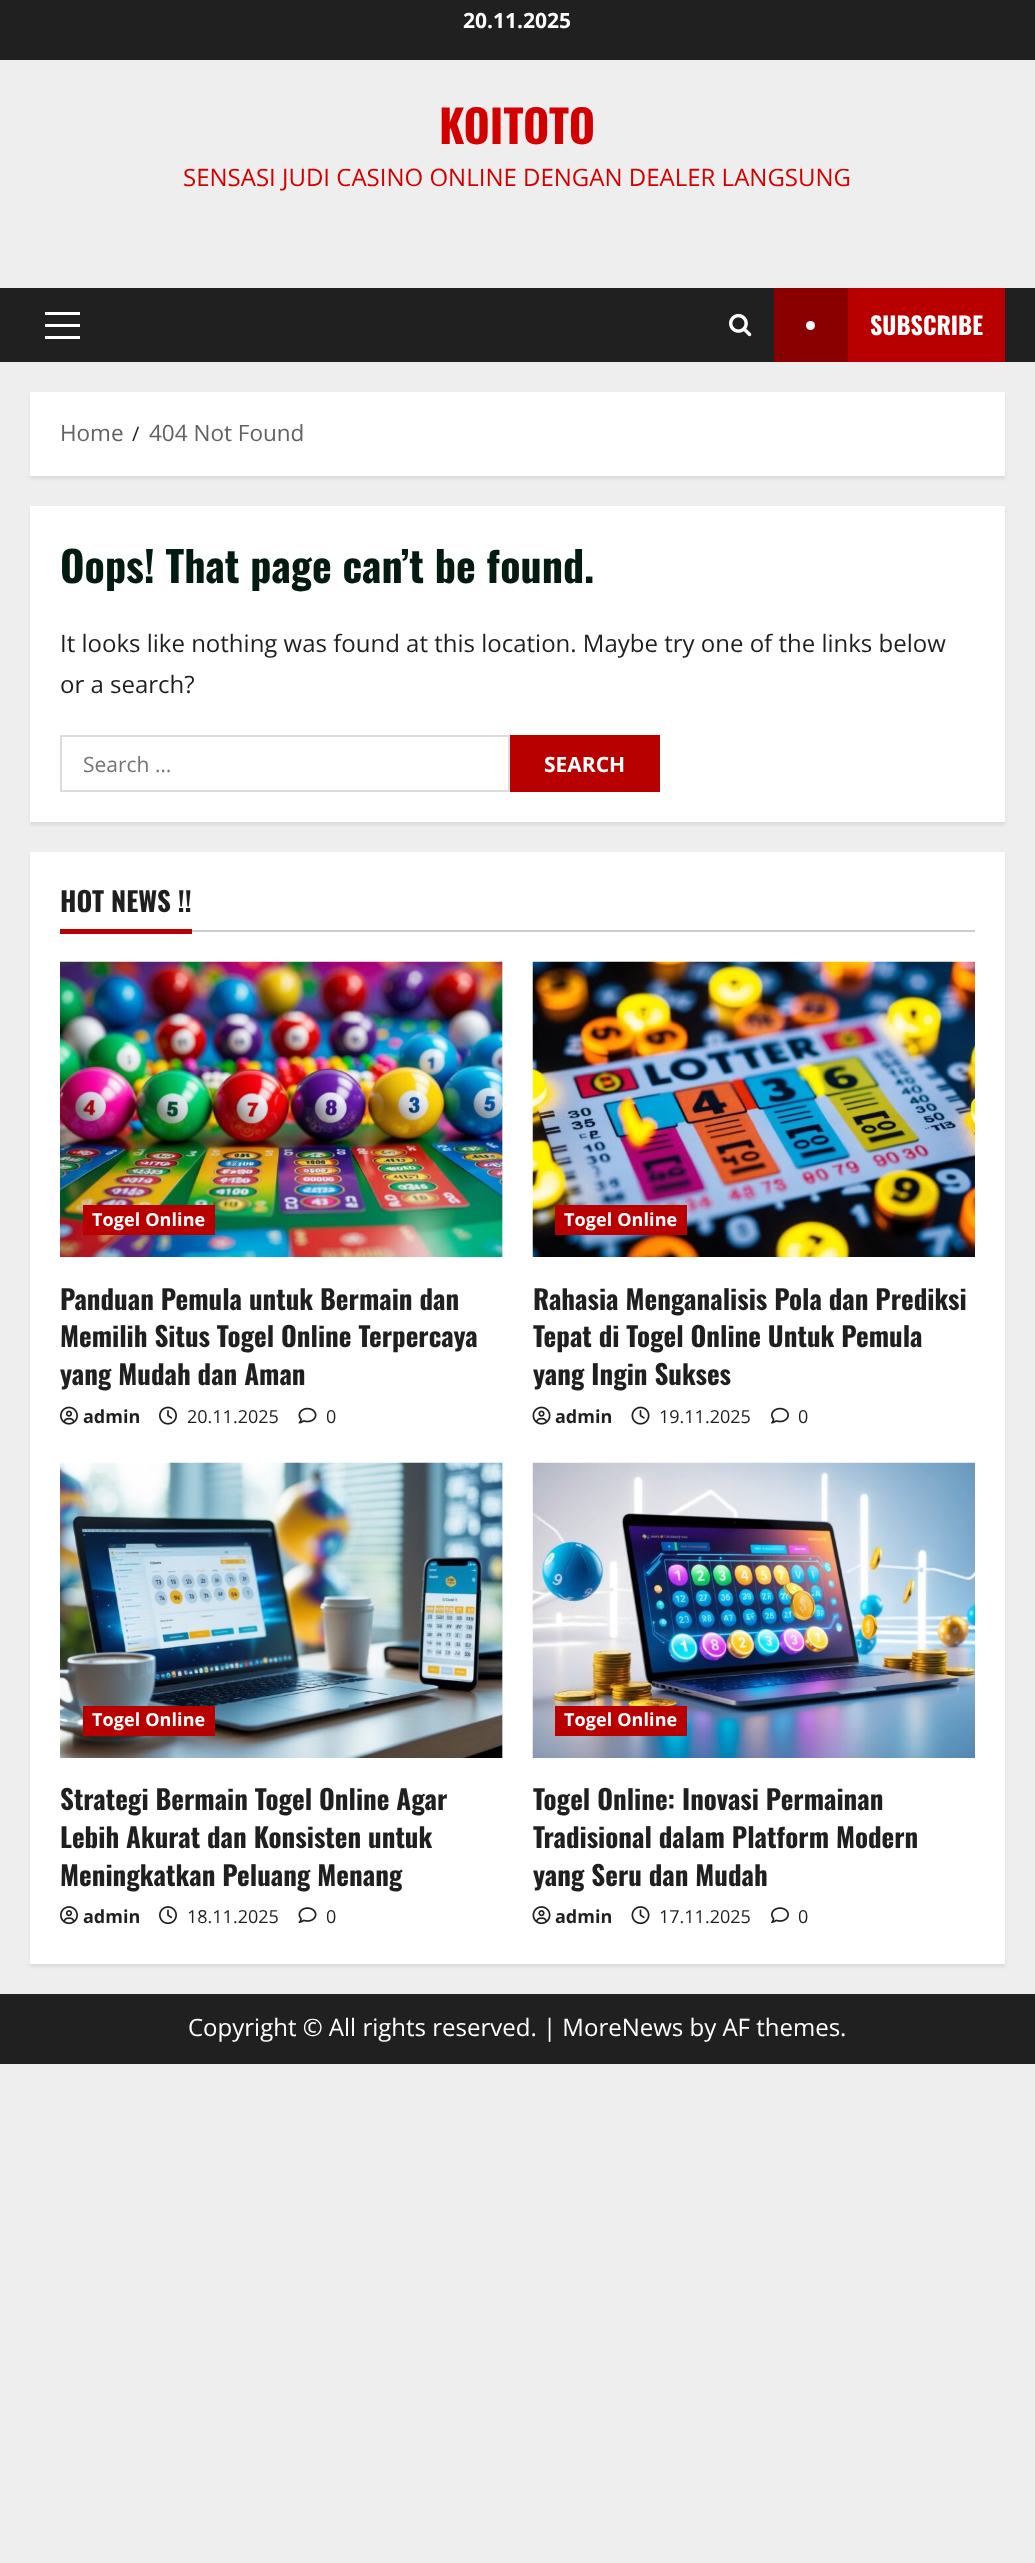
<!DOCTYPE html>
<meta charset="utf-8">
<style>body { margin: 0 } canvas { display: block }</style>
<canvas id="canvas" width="1035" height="2563"></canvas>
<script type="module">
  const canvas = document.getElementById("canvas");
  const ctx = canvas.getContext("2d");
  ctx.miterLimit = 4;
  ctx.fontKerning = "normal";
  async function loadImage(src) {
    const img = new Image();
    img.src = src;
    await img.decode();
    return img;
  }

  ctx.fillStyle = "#eeeeee";
  ctx.fillRect(0, 0, 1035, 2563);
  ctx.fillStyle = "#202020";
  ctx.fillRect(0, 0, 1035, 60);
  ctx.font = "bold 21px Open Sans";
  ctx.fillStyle = "#ffffff";
  ctx.fillText("20.11.2025", 463, 28);
  ctx.font = "bold 45px Oswald";
  ctx.fillStyle = "#d30000";
  ctx.fillText("KOITOTO", 439, 144);
  ctx.font = "24px Open Sans";
  ctx.fillText("SENSASI JUDI CASINO ONLINE DENGAN DEALER LANGSUNG", 183, 186);
  ctx.fillStyle = "#202020";
  ctx.fillRect(0, 288, 1035, 74);
  ctx.fillStyle = "#ffffff";
  ctx.fillRect(45, 324, 35, 3);
  ctx.fillRect(45, 312, 35, 3);
  ctx.fillRect(45, 336, 35, 3);
  ctx.drawImage(await loadImage("img1.png"), 729, 313, 23, 24);
  ctx.fillStyle = "#b80000";
  ctx.fillRect(848, 288, 157, 74);
  ctx.fillStyle = "#8a0000";
  ctx.fillRect(774, 288, 74, 74);
  ctx.fillStyle = "#ffffff";
  ctx.beginPath();
  ctx.arc(810.5, 325.5, 4.5, 0, Math.PI * 2);
  ctx.fill();
  ctx.font = "bold 24px Oswald";
  ctx.fillText("SUBSCRIBE", 870, 335);
  ctx.fillStyle = "rgba(0, 0, 0, 0.08)";
  ctx.filter = "blur(1.5px)";
  ctx.beginPath();
  ctx.rect(30, 395, 975, 84);
  ctx.fill();
  ctx.filter = "none";
  ctx.fillStyle = "#ffffff";
  ctx.fillRect(30, 392, 975, 84);
  ctx.font = "22.5px Open Sans";
  ctx.fillStyle = "#626262";
  ctx.fillText("Home", 60, 441);
  ctx.font = "20px Open Sans";
  ctx.fillStyle = "#1f1f1f";
  ctx.fillText("/", 132, 441);
  ctx.font = "22.5px Open Sans";
  ctx.fillStyle = "#626262";
  ctx.fillText("404 Not Found", 149, 441);
  ctx.fillStyle = "rgba(0, 0, 0, 0.08)";
  ctx.filter = "blur(1.5px)";
  ctx.beginPath();
  ctx.rect(30, 509, 975, 316);
  ctx.fill();
  ctx.filter = "none";
  ctx.fillStyle = "#ffffff";
  ctx.fillRect(30, 506, 975, 316);
  ctx.font = "bold 42px Oswald";
  ctx.fillStyle = "#031b11";
  ctx.fillText("Oops! That page can’t be found.", 60, 583);
  ctx.font = "24px Open Sans";
  ctx.fillStyle = "#1f1f1f";
  ctx.fillText("It looks like nothing was found at this location. Maybe try one of the links below", 60, 652);
  ctx.fillText("or a search?", 60, 693);
  ctx.strokeStyle = "#dcdcdc";
  ctx.lineWidth = 2;
  ctx.strokeRect(61, 736, 448, 55);
  ctx.font = "21px Open Sans";
  ctx.fillStyle = "#757575";
  ctx.fillText("Search …", 83, 772);
  ctx.fillStyle = "#b80000";
  ctx.fillRect(510, 735, 150, 57);
  ctx.font = "bold 21px Open Sans";
  ctx.fillStyle = "#ffffff";
  ctx.fillText("SEARCH", 544, 772);
  ctx.fillStyle = "rgba(0, 0, 0, 0.08)";
  ctx.filter = "blur(1.5px)";
  ctx.beginPath();
  ctx.rect(30, 855, 975, 1112);
  ctx.fill();
  ctx.filter = "none";
  ctx.fillStyle = "#ffffff";
  ctx.fillRect(30, 852, 975, 1112);
  ctx.fillStyle = "#cccccc";
  ctx.fillRect(192, 930, 783, 2);
  ctx.font = "bold 27px Oswald";
  ctx.fillStyle = "#1f1f1f";
  ctx.fillText("HOT NEWS !!", 60, 912);
  ctx.fillStyle = "#b80000";
  ctx.fillRect(60, 929, 132, 5);
  ctx.fillStyle = "#ececec";
  ctx.fillRect(502, 962, 1, 295);
  ctx.drawImage(await loadImage("img2.png"), 60, 961, 443, 296);
  ctx.fillStyle = "#b80000";
  ctx.fillRect(83, 1205, 132, 30);
  ctx.letterSpacing = "0.1px";
  ctx.font = "bold 18px Open Sans";
  ctx.fillStyle = "#ffffff";
  ctx.fillText("Togel Online", 92, 1226);
  ctx.letterSpacing = "0px";
  ctx.font = "bold 27px Oswald";
  ctx.fillStyle = "#1f1f1f";
  ctx.fillText("Panduan Pemula untuk Bermain dan", 60, 1310);
  ctx.fillText("Memilih Situs Togel Online Terpercaya", 60, 1347);
  ctx.fillText("yang Mudah dan Aman", 60, 1385);
  ctx.drawImage(await loadImage("img3.png"), 60, 1406, 18, 19);
  ctx.font = "bold 18px Open Sans";
  ctx.fillText("admin", 83, 1423);
  ctx.drawImage(await loadImage("img4.png"), 159, 1406, 18, 19);
  ctx.font = "18px Open Sans";
  ctx.fillText("20.11.2025", 187, 1423);
  ctx.drawImage(await loadImage("img5.png"), 298, 1407, 19, 17);
  ctx.fillText("0", 326, 1423);
  ctx.drawImage(await loadImage("img6.png"), 532, 961, 443, 296);
  ctx.fillStyle = "#b80000";
  ctx.fillRect(555, 1205, 132, 30);
  ctx.letterSpacing = "0.1px";
  ctx.font = "bold 18px Open Sans";
  ctx.fillStyle = "#ffffff";
  ctx.fillText("Togel Online", 564, 1226);
  ctx.letterSpacing = "0px";
  ctx.font = "bold 27px Oswald";
  ctx.fillStyle = "#1f1f1f";
  ctx.fillText("Rahasia Menganalisis Pola dan Prediksi", 533, 1310);
  ctx.fillText("Tepat di Togel Online Untuk Pemula", 533, 1347);
  ctx.fillText("yang Ingin Sukses", 533, 1385);
  ctx.drawImage(await loadImage("img7.png"), 532, 1406, 19, 19);
  ctx.font = "bold 18px Open Sans";
  ctx.fillText("admin", 555, 1423);
  ctx.drawImage(await loadImage("img8.png"), 631, 1406, 19, 19);
  ctx.font = "18px Open Sans";
  ctx.fillText("19.11.2025", 659, 1423);
  ctx.drawImage(await loadImage("img9.png"), 771, 1407, 18, 17);
  ctx.fillText("0", 798, 1423);
  ctx.fillStyle = "#ececec";
  ctx.fillRect(502, 1463, 1, 295);
  ctx.drawImage(await loadImage("img10.png"), 60, 1462, 443, 296);
  ctx.fillStyle = "#b80000";
  ctx.fillRect(83, 1706, 132, 30);
  ctx.letterSpacing = "0.1px";
  ctx.font = "bold 18px Open Sans";
  ctx.fillStyle = "#ffffff";
  ctx.fillText("Togel Online", 92, 1726);
  ctx.letterSpacing = "0px";
  ctx.font = "bold 27px Oswald";
  ctx.fillStyle = "#1f1f1f";
  ctx.fillText("Strategi Bermain Togel Online Agar", 60, 1810);
  ctx.fillText("Lebih Akurat dan Konsisten untuk", 60, 1848);
  ctx.fillText("Meningkatkan Peluang Menang", 60, 1886);
  ctx.drawImage(await loadImage("img11.png"), 60, 1906, 18, 19);
  ctx.font = "bold 18px Open Sans";
  ctx.fillText("admin", 83, 1923);
  ctx.drawImage(await loadImage("img12.png"), 159, 1906, 18, 19);
  ctx.font = "18px Open Sans";
  ctx.fillText("18.11.2025", 187, 1923);
  ctx.drawImage(await loadImage("img13.png"), 298, 1907, 19, 16);
  ctx.fillText("0", 326, 1923);
  ctx.drawImage(await loadImage("img14.png"), 532, 1462, 443, 296);
  ctx.fillStyle = "#b80000";
  ctx.fillRect(555, 1706, 132, 30);
  ctx.letterSpacing = "0.1px";
  ctx.font = "bold 18px Open Sans";
  ctx.fillStyle = "#ffffff";
  ctx.fillText("Togel Online", 564, 1726);
  ctx.letterSpacing = "0px";
  ctx.font = "bold 27px Oswald";
  ctx.fillStyle = "#1f1f1f";
  ctx.fillText("Togel Online: Inovasi Permainan", 533, 1810);
  ctx.fillText("Tradisional dalam Platform Modern", 533, 1848);
  ctx.fillText("yang Seru dan Mudah", 533, 1886);
  ctx.drawImage(await loadImage("img15.png"), 532, 1906, 19, 19);
  ctx.font = "bold 18px Open Sans";
  ctx.fillText("admin", 555, 1923);
  ctx.drawImage(await loadImage("img16.png"), 631, 1906, 19, 19);
  ctx.font = "18px Open Sans";
  ctx.fillText("17.11.2025", 659, 1923);
  ctx.drawImage(await loadImage("img17.png"), 771, 1907, 18, 16);
  ctx.fillText("0", 798, 1923);
  ctx.fillStyle = "#202020";
  ctx.fillRect(0, 1994, 1035, 70);
  ctx.font = "24px Open Sans";
  ctx.fillStyle = "#ffffff";
  ctx.fillText("Copyright © All rights reserved. | MoreNews by AF themes.", 188, 2036);
</script>
